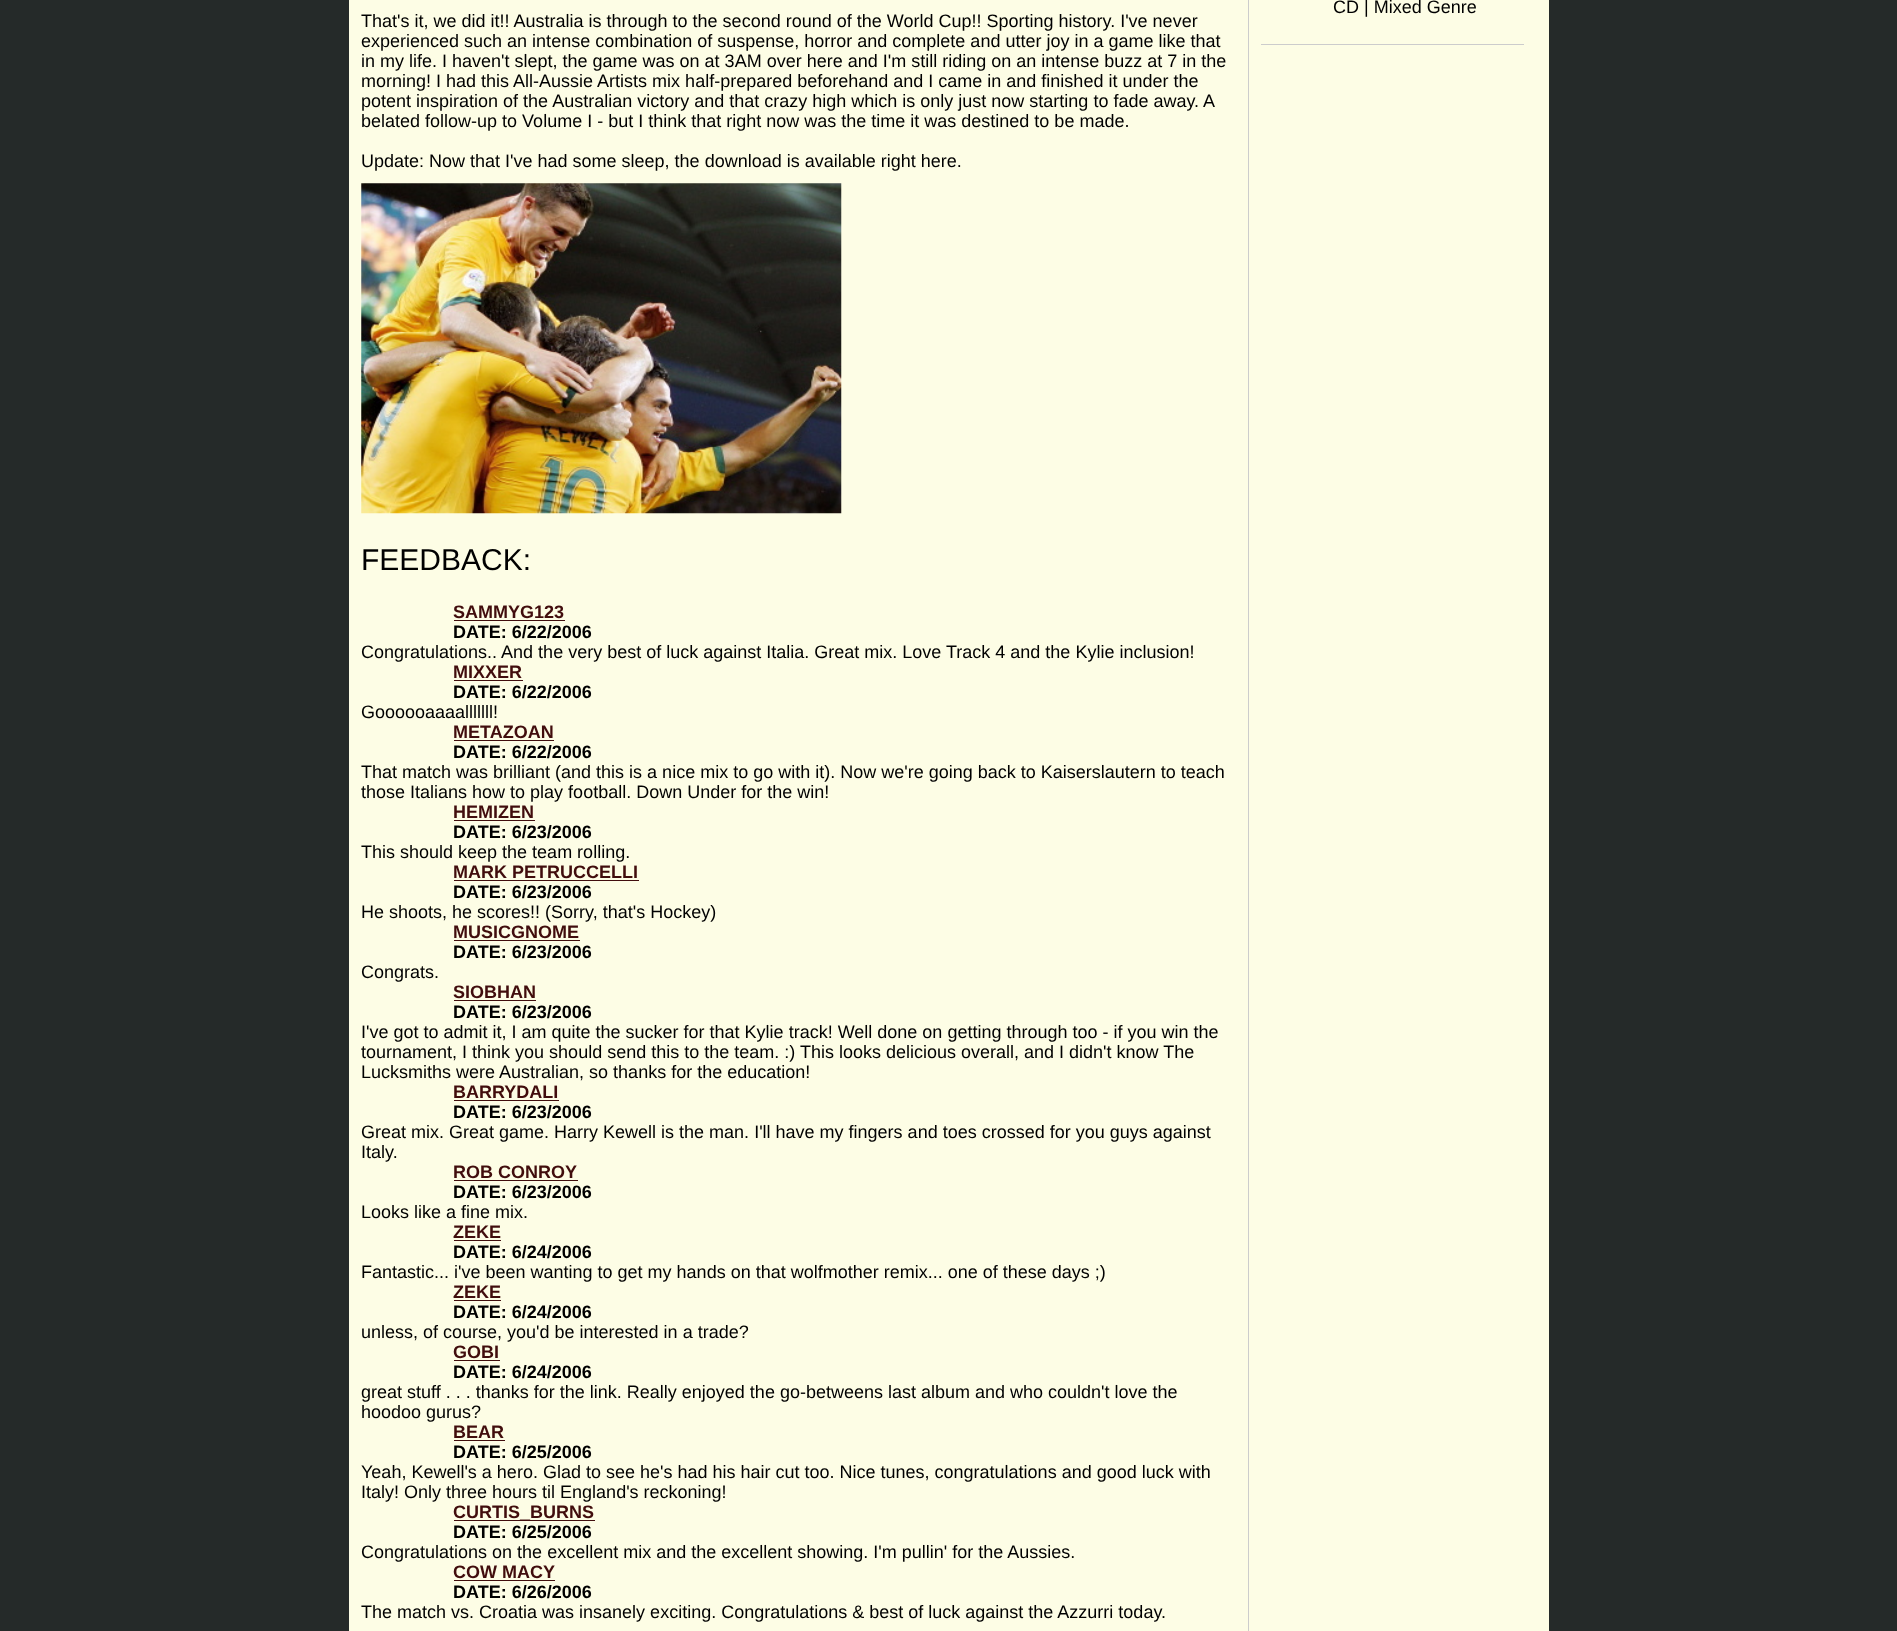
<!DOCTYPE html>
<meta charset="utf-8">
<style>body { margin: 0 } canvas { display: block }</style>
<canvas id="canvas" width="1897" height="1631"></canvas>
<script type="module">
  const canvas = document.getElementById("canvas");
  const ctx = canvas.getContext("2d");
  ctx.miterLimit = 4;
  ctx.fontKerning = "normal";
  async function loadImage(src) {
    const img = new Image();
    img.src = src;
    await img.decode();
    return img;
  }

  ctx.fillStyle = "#252a29";
  ctx.fillRect(0, 0, 1897, 1631);
  ctx.fillStyle = "#fdfde5";
  ctx.fillRect(349, 0, 1200, 1631);
  ctx.fillStyle = "#cccccc";
  ctx.fillRect(1261, 44, 263, 1);
  ctx.font = "18px Liberation Sans";
  ctx.fillStyle = "#000000";
  ctx.fillText("CD | Mixed Genre", 1333, 13);
  ctx.fillStyle = "#cccccc";
  ctx.fillRect(1248, 0, 1, 1631);
  ctx.fillStyle = "#000000";
  ctx.fillText("That's it, we did it!! Australia is through to the second round of the World Cup!! Sporting history. I've never", 361, 27);
  ctx.fillText("experienced such an intense combination of suspense, horror and complete and utter joy in a game like that", 361, 47);
  ctx.fillText("in my life. I haven't slept, the game was on at 3AM over here and I'm still riding on an intense buzz at 7 in the", 361, 67);
  ctx.fillText("morning! I had this All-Aussie Artists mix half-prepared beforehand and I came in and finished it under the", 361, 87);
  ctx.fillText("potent inspiration of the Australian victory and that crazy high which is only just now starting to fade away. A", 361, 107);
  ctx.fillText("belated follow-up to Volume I - but I think that right now was the time it was destined to be made.", 361, 127);
  ctx.fillText("Update: Now that I've had some sleep, the download is available right here.", 361, 167);
  ctx.drawImage(await loadImage("img1.png"), 361, 183, 481, 331);
  ctx.font = "30px Liberation Sans";
  ctx.fillText("FEEDBACK:", 361, 570);
  ctx.font = "bold 18px Liberation Sans";
  ctx.fillStyle = "#410d0d";
  ctx.fillText("SAMMYG123", 453, 618);
  ctx.fillRect(454, 620, 111, 1);
  ctx.fillStyle = "#000000";
  ctx.fillText("DATE: 6/22/2006", 453, 638);
  ctx.font = "18px Liberation Sans";
  ctx.fillText("Congratulations.. And the very best of luck against Italia. Great mix. Love Track 4 and the Kylie inclusion!", 361, 658);
  ctx.font = "bold 18px Liberation Sans";
  ctx.fillStyle = "#410d0d";
  ctx.fillText("MIXXER", 453, 678);
  ctx.fillRect(454, 680, 69, 1);
  ctx.fillStyle = "#000000";
  ctx.fillText("DATE: 6/22/2006", 453, 698);
  ctx.font = "18px Liberation Sans";
  ctx.fillText("Goooooaaaalllllll!", 361, 718);
  ctx.font = "bold 18px Liberation Sans";
  ctx.fillStyle = "#410d0d";
  ctx.fillText("METAZOAN", 453, 738);
  ctx.fillRect(454, 740, 100, 1);
  ctx.fillStyle = "#000000";
  ctx.fillText("DATE: 6/22/2006", 453, 758);
  ctx.font = "18px Liberation Sans";
  ctx.fillText("That match was brilliant (and this is a nice mix to go with it). Now we're going back to Kaiserslautern to teach", 361, 778);
  ctx.fillText("those Italians how to play football. Down Under for the win!", 361, 798);
  ctx.font = "bold 18px Liberation Sans";
  ctx.fillStyle = "#410d0d";
  ctx.fillText("HEMIZEN", 453, 818);
  ctx.fillRect(454, 820, 81, 1);
  ctx.fillStyle = "#000000";
  ctx.fillText("DATE: 6/23/2006", 453, 838);
  ctx.font = "18px Liberation Sans";
  ctx.fillText("This should keep the team rolling.", 361, 858);
  ctx.font = "bold 18px Liberation Sans";
  ctx.fillStyle = "#410d0d";
  ctx.fillText("MARK PETRUCCELLI", 453, 878);
  ctx.fillRect(454, 880, 185, 1);
  ctx.fillStyle = "#000000";
  ctx.fillText("DATE: 6/23/2006", 453, 898);
  ctx.font = "18px Liberation Sans";
  ctx.fillText("He shoots, he scores!! (Sorry, that's Hockey)", 361, 918);
  ctx.font = "bold 18px Liberation Sans";
  ctx.fillStyle = "#410d0d";
  ctx.fillText("MUSICGNOME", 453, 938);
  ctx.fillRect(454, 940, 126, 1);
  ctx.fillStyle = "#000000";
  ctx.fillText("DATE: 6/23/2006", 453, 958);
  ctx.font = "18px Liberation Sans";
  ctx.fillText("Congrats.", 361, 978);
  ctx.font = "bold 18px Liberation Sans";
  ctx.fillStyle = "#410d0d";
  ctx.fillText("SIOBHAN", 453, 998);
  ctx.fillRect(454, 1000, 82, 1);
  ctx.fillStyle = "#000000";
  ctx.fillText("DATE: 6/23/2006", 453, 1018);
  ctx.font = "18px Liberation Sans";
  ctx.fillText("I've got to admit it, I am quite the sucker for that Kylie track! Well done on getting through too - if you win the", 361, 1038);
  ctx.fillText("tournament, I think you should send this to the team. :) This looks delicious overall, and I didn't know The", 361, 1058);
  ctx.fillText("Lucksmiths were Australian, so thanks for the education!", 361, 1078);
  ctx.font = "bold 18px Liberation Sans";
  ctx.fillStyle = "#410d0d";
  ctx.fillText("BARRYDALI", 453, 1098);
  ctx.fillRect(454, 1100, 105, 1);
  ctx.fillStyle = "#000000";
  ctx.fillText("DATE: 6/23/2006", 453, 1118);
  ctx.font = "18px Liberation Sans";
  ctx.fillText("Great mix. Great game. Harry Kewell is the man. I'll have my fingers and toes crossed for you guys against", 361, 1138);
  ctx.fillText("Italy.", 361, 1158);
  ctx.font = "bold 18px Liberation Sans";
  ctx.fillStyle = "#410d0d";
  ctx.fillText("ROB CONROY", 453, 1178);
  ctx.fillRect(454, 1180, 124, 1);
  ctx.fillStyle = "#000000";
  ctx.fillText("DATE: 6/23/2006", 453, 1198);
  ctx.font = "18px Liberation Sans";
  ctx.fillText("Looks like a fine mix.", 361, 1218);
  ctx.font = "bold 18px Liberation Sans";
  ctx.fillStyle = "#410d0d";
  ctx.fillText("ZEKE", 453, 1238);
  ctx.fillRect(454, 1240, 47, 1);
  ctx.fillStyle = "#000000";
  ctx.fillText("DATE: 6/24/2006", 453, 1258);
  ctx.font = "18px Liberation Sans";
  ctx.fillText("Fantastic... i've been wanting to get my hands on that wolfmother remix... one of these days ;)", 361, 1278);
  ctx.font = "bold 18px Liberation Sans";
  ctx.fillStyle = "#410d0d";
  ctx.fillText("ZEKE", 453, 1298);
  ctx.fillRect(454, 1300, 47, 1);
  ctx.fillStyle = "#000000";
  ctx.fillText("DATE: 6/24/2006", 453, 1318);
  ctx.font = "18px Liberation Sans";
  ctx.fillText("unless, of course, you'd be interested in a trade?", 361, 1338);
  ctx.font = "bold 18px Liberation Sans";
  ctx.fillStyle = "#410d0d";
  ctx.fillText("GOBI", 453, 1358);
  ctx.fillRect(454, 1360, 46, 1);
  ctx.fillStyle = "#000000";
  ctx.fillText("DATE: 6/24/2006", 453, 1378);
  ctx.font = "18px Liberation Sans";
  ctx.fillText("great stuff . . . thanks for the link. Really enjoyed the go-betweens last album and who couldn't love the", 361, 1398);
  ctx.fillText("hoodoo gurus?", 361, 1418);
  ctx.font = "bold 18px Liberation Sans";
  ctx.fillStyle = "#410d0d";
  ctx.fillText("BEAR", 453, 1438);
  ctx.fillRect(454, 1440, 51, 1);
  ctx.fillStyle = "#000000";
  ctx.fillText("DATE: 6/25/2006", 453, 1458);
  ctx.font = "18px Liberation Sans";
  ctx.fillText("Yeah, Kewell's a hero. Glad to see he's had his hair cut too. Nice tunes, congratulations and good luck with", 361, 1478);
  ctx.fillText("Italy! Only three hours til England's reckoning!", 361, 1498);
  ctx.fillStyle = "#410d0d";
  ctx.fillRect(454, 1520, 141, 1);
  ctx.font = "bold 18px Liberation Sans";
  ctx.fillText("CURTIS_BURNS", 453, 1518);
  ctx.fillStyle = "#000000";
  ctx.fillText("DATE: 6/25/2006", 453, 1538);
  ctx.font = "18px Liberation Sans";
  ctx.fillText("Congratulations on the excellent mix and the excellent showing. I'm pullin' for the Aussies.", 361, 1558);
  ctx.font = "bold 18px Liberation Sans";
  ctx.fillStyle = "#410d0d";
  ctx.fillText("COW MACY", 453, 1578);
  ctx.fillRect(454, 1580, 101, 1);
  ctx.fillStyle = "#000000";
  ctx.fillText("DATE: 6/26/2006", 453, 1598);
  ctx.font = "18px Liberation Sans";
  ctx.fillText("The match vs. Croatia was insanely exciting. Congratulations & best of luck against the Azzurri today.", 361, 1618);
</script>
